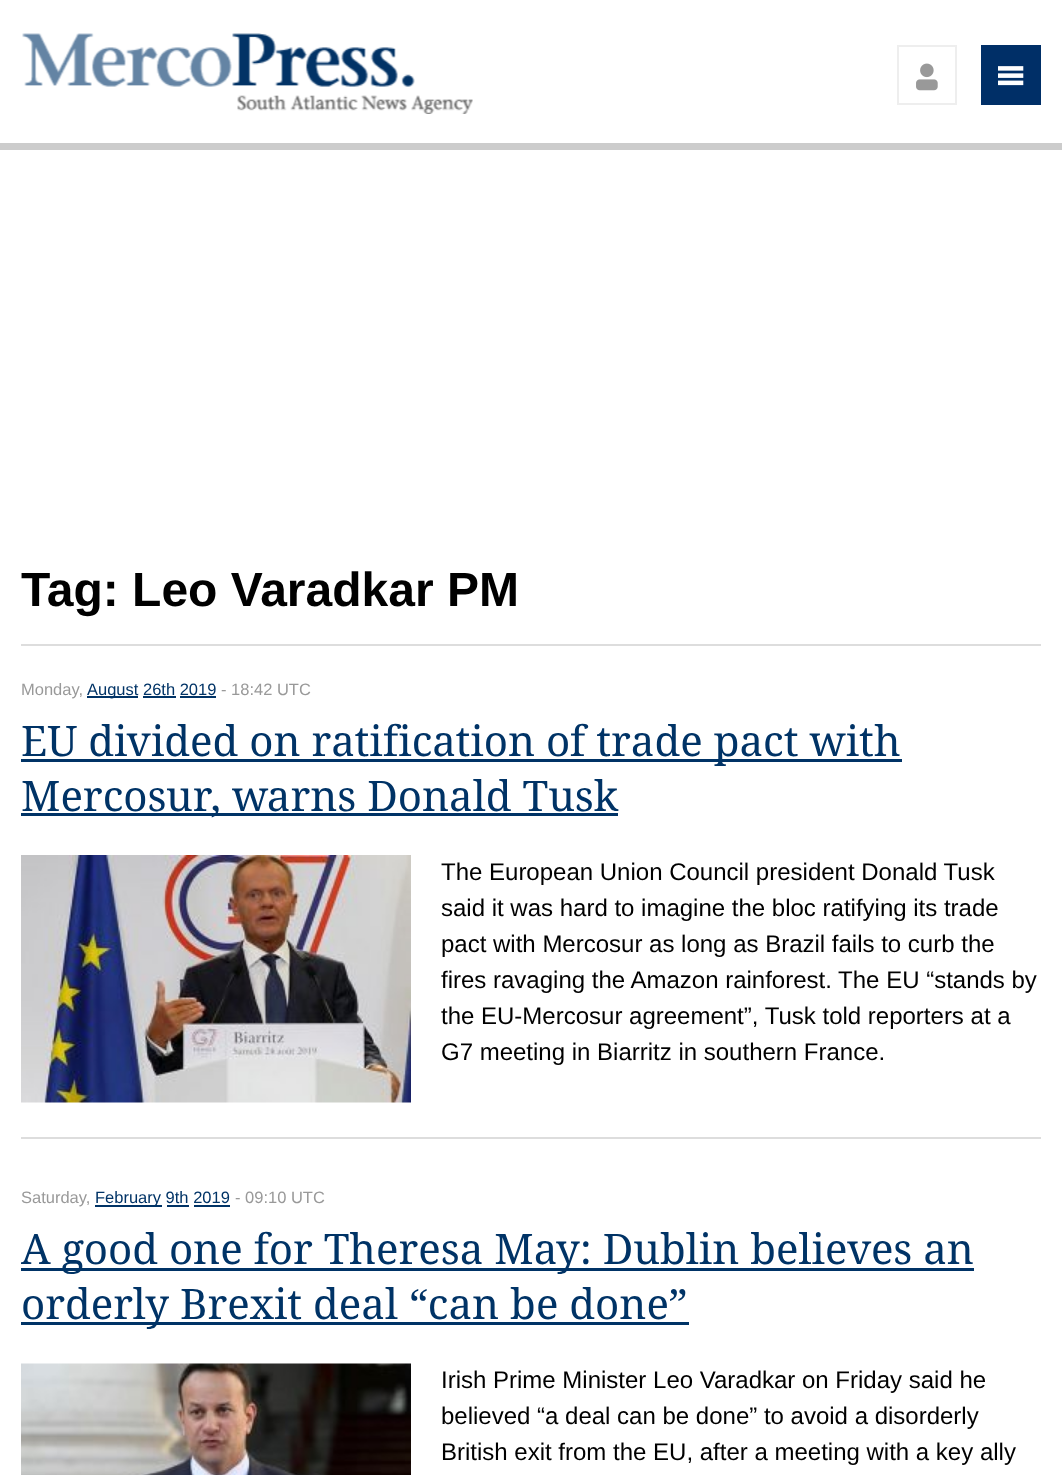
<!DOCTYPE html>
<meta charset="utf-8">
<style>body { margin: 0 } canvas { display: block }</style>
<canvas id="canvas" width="1062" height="1475"></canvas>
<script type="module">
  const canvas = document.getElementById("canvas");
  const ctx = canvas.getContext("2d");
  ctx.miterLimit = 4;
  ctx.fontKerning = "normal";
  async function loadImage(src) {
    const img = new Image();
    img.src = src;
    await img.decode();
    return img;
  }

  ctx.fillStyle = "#ffffff";
  ctx.fillRect(0, 0, 1062, 1475);
  ctx.fillStyle = "#cccccc";
  ctx.fillRect(0, 143, 1062, 7);
  ctx.drawImage(await loadImage("img1.png"), 22, 33, 451, 81);
  ctx.strokeStyle = "#eeeeee";
  ctx.lineWidth = 2;
  ctx.strokeRect(898, 46, 58, 58);
  ctx.drawImage(await loadImage("img2.png"), 916, 63, 22, 28);
  ctx.fillStyle = "#002f67";
  ctx.fillRect(981, 45, 60, 60);
  ctx.drawImage(await loadImage("img3.png"), 998, 66, 26, 20);
  ctx.fillStyle = "#dddddd";
  ctx.fillRect(21, 644, 1020, 2);
  ctx.font = "bold 48px Liberation Sans";
  ctx.fillStyle = "#000000";
  ctx.fillText("Tag: Leo Varadkar PM", 21, 606);
  ctx.fillStyle = "#dddddd";
  ctx.fillRect(21, 1137, 1020, 2);
  ctx.font = "16.5px Liberation Sans";
  ctx.fillStyle = "#999999";
  ctx.fillText("Monday,", 21, 695);
  ctx.fillStyle = "#003366";
  ctx.fillRect(87, 696, 51, 2);
  ctx.fillText("August 26th 2019", 87, 695);
  ctx.fillRect(143, 696, 33, 2);
  ctx.fillRect(180, 696, 36, 2);
  ctx.fillStyle = "#999999";
  ctx.fillText("- 18:42 UTC", 221, 695);
  ctx.fillStyle = "#003366";
  ctx.fillRect(21, 759, 881, 3);
  ctx.font = "42px Droid Serif";
  ctx.fillText("EU divided on ratification of trade pact with", 21, 756);
  ctx.fillRect(21, 813, 597, 3);
  ctx.fillText("Mercosur, warns Donald Tusk", 21, 811);
  ctx.drawImage(await loadImage("img4.png"), 21, 855, 390, 248);
  ctx.font = "24px Liberation Sans";
  ctx.fillStyle = "#000000";
  ctx.fillText("The European Union Council president Donald Tusk", 441, 880);
  ctx.fillText("said it was hard to imagine the bloc ratifying its trade", 441, 916);
  ctx.fillText("pact with Mercosur as long as Brazil fails to curb the", 441, 952);
  ctx.fillText("fires ravaging the Amazon rainforest. The EU “stands by", 441, 988);
  ctx.fillText("the EU-Mercosur agreement”, Tusk told reporters at a", 441, 1024);
  ctx.fillText("G7 meeting in Biarritz in southern France.", 441, 1060);
  ctx.font = "16.5px Liberation Sans";
  ctx.fillStyle = "#999999";
  ctx.fillText("Saturday,", 21, 1203);
  ctx.fillStyle = "#003366";
  ctx.fillRect(95, 1205, 67, 2);
  ctx.fillText("February 9th 2019", 95, 1203);
  ctx.fillRect(167, 1205, 22, 2);
  ctx.fillRect(194, 1205, 36, 2);
  ctx.fillStyle = "#999999";
  ctx.fillText("- 09:10 UTC", 235, 1203);
  ctx.fillStyle = "#003366";
  ctx.fillRect(21, 1268, 953, 3);
  ctx.font = "42px Droid Serif";
  ctx.fillText("A good one for Theresa May: Dublin believes an", 21, 1264);
  ctx.fillRect(21, 1322, 668, 3);
  ctx.fillText("orderly Brexit deal “can be done”", 21, 1319);
  ctx.drawImage(await loadImage("img5.png"), 21, 1363, 390, 112);
  ctx.font = "24px Liberation Sans";
  ctx.fillStyle = "#000000";
  ctx.fillText("Irish Prime Minister Leo Varadkar on Friday said he", 441, 1388);
  ctx.fillText("believed “a deal can be done” to avoid a disorderly", 441, 1424);
  ctx.fillText("British exit from the EU, after a meeting with a key ally", 441, 1460);
</script>
